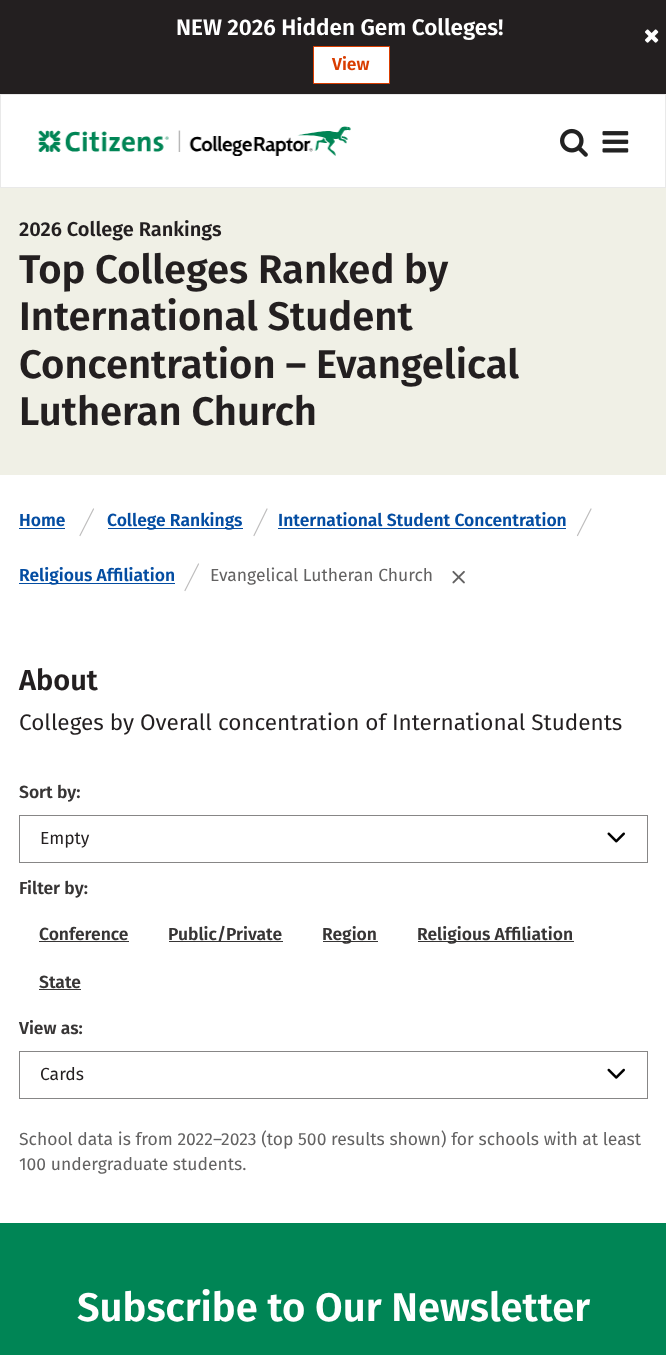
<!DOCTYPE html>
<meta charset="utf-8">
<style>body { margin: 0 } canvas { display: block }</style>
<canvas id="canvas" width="666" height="1355"></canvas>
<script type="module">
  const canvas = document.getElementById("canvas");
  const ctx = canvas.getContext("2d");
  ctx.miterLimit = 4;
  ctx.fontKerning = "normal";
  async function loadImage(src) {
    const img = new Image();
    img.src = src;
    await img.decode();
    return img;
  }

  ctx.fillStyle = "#ffffff";
  ctx.fillRect(0, 0, 666, 1355);
  ctx.fillStyle = "#231f20";
  ctx.fillRect(0, 0, 666, 94);
  ctx.font = "600 22.5px Fira Sans";
  ctx.fillStyle = "#ffffff";
  ctx.fillText("NEW 2026 Hidden Gem Colleges!", 176, 35);
  ctx.beginPath();
  ctx.rect(313.5, 46.5, 76, 37);
  ctx.fill();
  ctx.strokeStyle = "#d93d00";
  ctx.stroke();
  ctx.font = "600 17.5px Fira Sans";
  ctx.fillStyle = "#d93d00";
  ctx.fillText("View", 332, 70);
  ctx.drawImage(await loadImage("img1.png"), 645, 29, 14, 14);
  ctx.strokeStyle = "#e9e9e9";
  ctx.strokeRect(0.5, 94.5, 665, 93);
  ctx.drawImage(await loadImage("img2.png"), 38, 126, 313, 30);
  ctx.drawImage(await loadImage("img3.png"), 560, 128, 28, 29);
  ctx.drawImage(await loadImage("img4.png"), 602, 131, 27, 22);
  ctx.fillStyle = "#f0f0e6";
  ctx.fillRect(0, 188, 666, 287);
  ctx.font = "600 20px Fira Sans";
  ctx.fillStyle = "#231f20";
  ctx.fillText("2026 College Rankings", 19, 236);
  ctx.font = "600 40px Fira Sans";
  ctx.fillText("Top Colleges Ranked by", 19, 283);
  ctx.fillText("International Student", 19, 330);
  ctx.fillText("Concentration – Evangelical", 19, 378);
  ctx.fillText("Lutheran Church", 19, 425);
  ctx.font = "600 17.5px Fira Sans";
  ctx.fillStyle = "#044da2";
  ctx.fillText("Home", 19, 526);
  ctx.fillRect(19, 528, 46, 1);
  ctx.beginPath();
  ctx.moveTo(93.5, 509);
  ctx.lineTo(80, 535.5);
  ctx.strokeStyle = "#bfbebe";
  ctx.lineWidth = 1.2;
  ctx.lineCap = "round";
  ctx.stroke();
  ctx.fillRect(108, 528, 135, 1);
  ctx.fillText("College Rankings", 107, 526);
  ctx.beginPath();
  ctx.moveTo(267, 509);
  ctx.lineTo(254, 535.5);
  ctx.stroke();
  ctx.fillText("International Student Concentration", 278, 526);
  ctx.fillRect(278, 528, 288, 1);
  ctx.beginPath();
  ctx.moveTo(591, 509);
  ctx.lineTo(577.5, 535.5);
  ctx.stroke();
  ctx.fillRect(19, 583, 156, 1);
  ctx.fillText("Religious Affiliation", 19, 581);
  ctx.beginPath();
  ctx.moveTo(198.5, 564);
  ctx.lineTo(185, 590.5);
  ctx.stroke();
  ctx.font = "17.5px Fira Sans";
  ctx.fillStyle = "#636262";
  ctx.fillText("Evangelical Lutheran Church", 210, 581);
  ctx.drawImage(await loadImage("img5.png"), 452, 570, 13, 14);
  ctx.font = "600 29px Fira Sans";
  ctx.fillStyle = "#231f20";
  ctx.fillText("About", 19, 690);
  ctx.font = "22.5px Fira Sans";
  ctx.fillText("Colleges by Overall concentration of International Students", 19, 730);
  ctx.font = "600 17.5px Fira Sans";
  ctx.fillStyle = "#373535";
  ctx.fillText("Sort by:", 19, 798);
  ctx.strokeStyle = "#878686";
  ctx.lineWidth = 1;
  ctx.strokeRect(19.5, 815.5, 628, 47);
  ctx.font = "17.5px Fira Sans";
  ctx.fillStyle = "#231f20";
  ctx.fillText("Empty", 40, 844);
  ctx.drawImage(await loadImage("img6.png"), 607, 832, 18, 11);
  ctx.font = "600 17.5px Fira Sans";
  ctx.fillStyle = "#373535";
  ctx.fillText("Filter by:", 19, 894);
  ctx.fillText("Conference", 39, 940);
  ctx.fillRect(39, 941, 90, 1);
  ctx.fillRect(169, 941, 114, 1);
  ctx.fillText("Public/Private", 168, 940);
  ctx.fillRect(323, 941, 55, 1);
  ctx.fillText("Region", 322, 940);
  ctx.fillRect(418, 941, 156, 1);
  ctx.fillText("Religious Affiliation", 417, 940);
  ctx.fillText("State", 39, 988);
  ctx.fillRect(39, 989, 42, 1);
  ctx.fillText("View as:", 19, 1034);
  ctx.strokeRect(19.5, 1051.5, 628, 47);
  ctx.font = "17.5px Fira Sans";
  ctx.fillStyle = "#231f20";
  ctx.fillText("Cards", 40, 1080);
  ctx.drawImage(await loadImage("img7.png"), 607, 1068, 18, 11);
  ctx.fillStyle = "#636262";
  ctx.fillText("School data is from 2022–2023 (top 500 results shown) for schools with at least", 19, 1145);
  ctx.fillText("100 undergraduate students.", 19, 1170);
  ctx.fillStyle = "#008555";
  ctx.fillRect(0, 1223, 666, 132);
  ctx.font = "600 40px Fira Sans";
  ctx.fillStyle = "#ffffff";
  ctx.fillText("Subscribe to Our Newsletter", 77, 1321);
</script>
